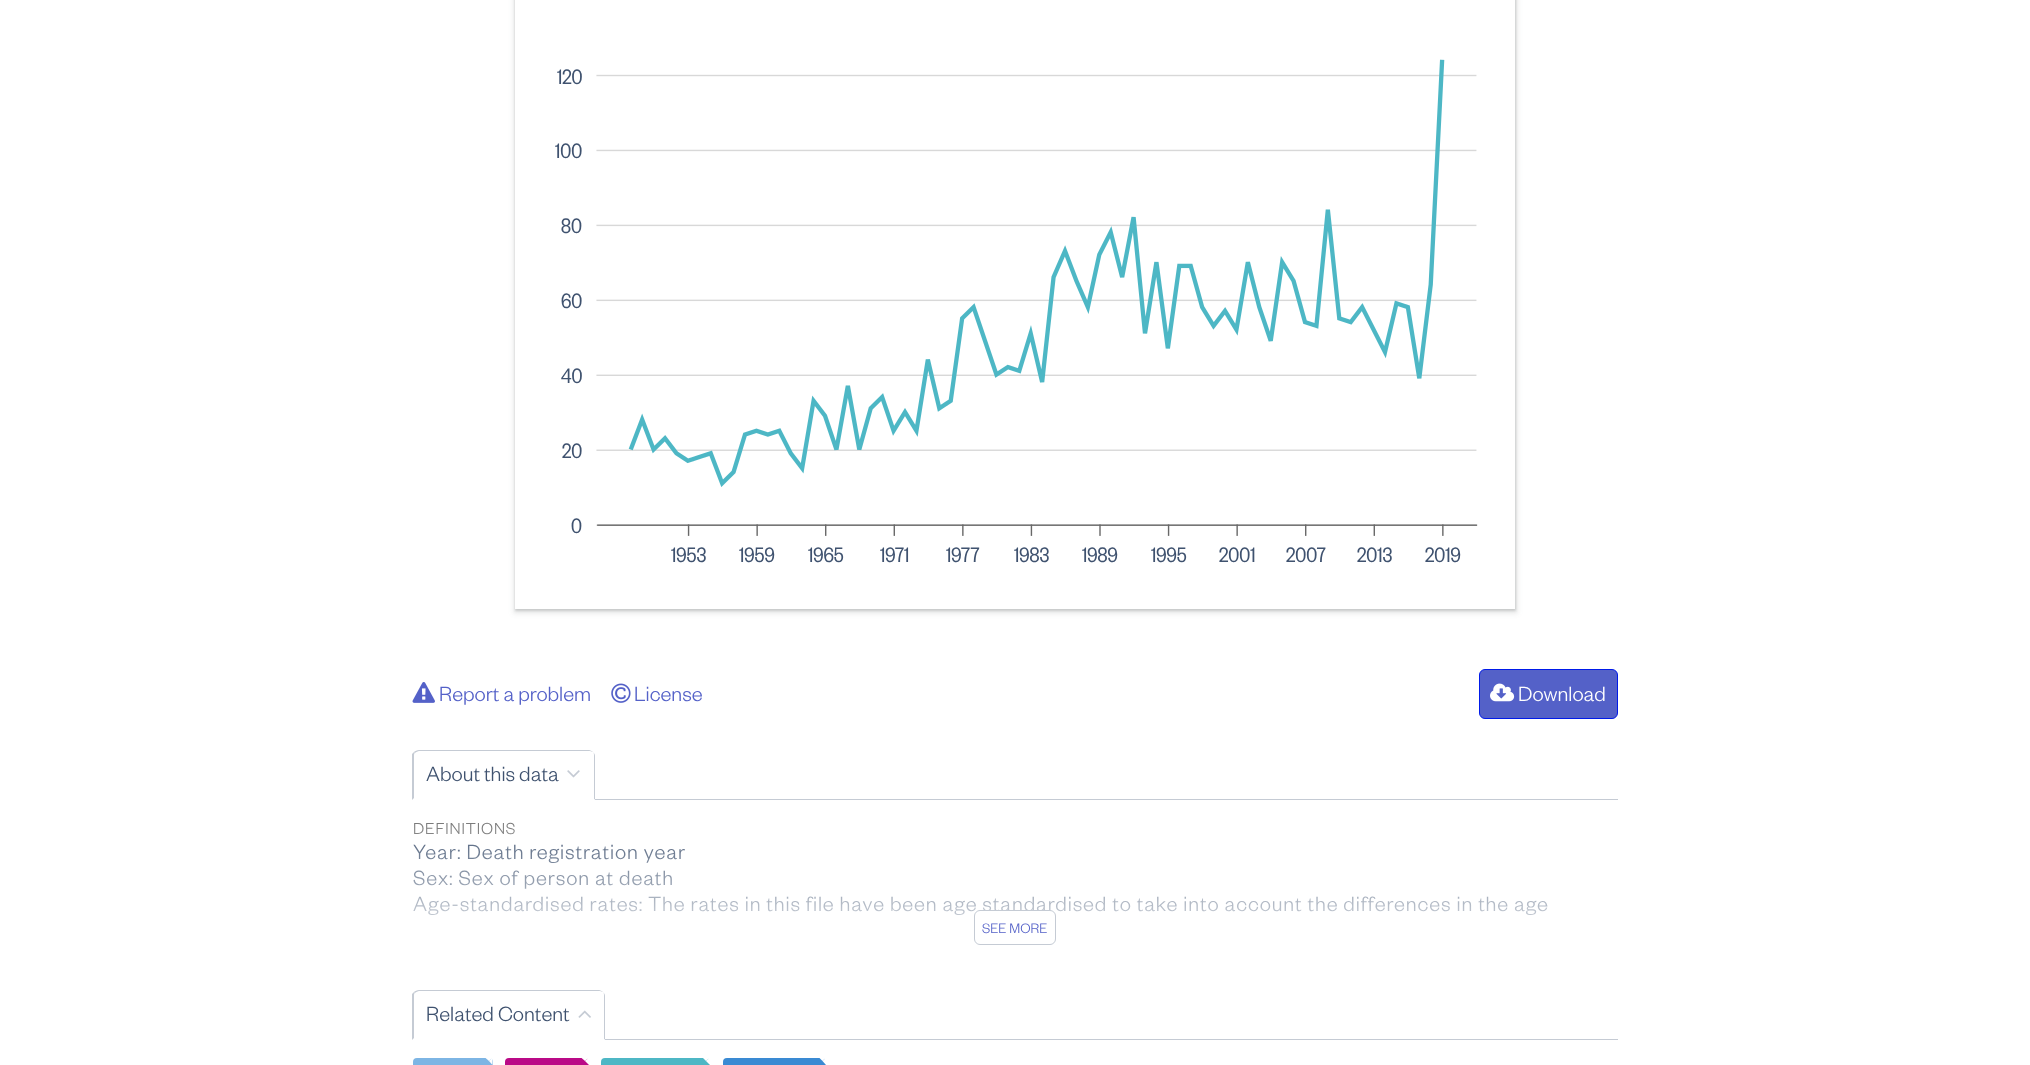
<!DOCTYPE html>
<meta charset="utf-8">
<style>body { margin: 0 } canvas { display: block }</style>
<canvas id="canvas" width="2030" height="1065"></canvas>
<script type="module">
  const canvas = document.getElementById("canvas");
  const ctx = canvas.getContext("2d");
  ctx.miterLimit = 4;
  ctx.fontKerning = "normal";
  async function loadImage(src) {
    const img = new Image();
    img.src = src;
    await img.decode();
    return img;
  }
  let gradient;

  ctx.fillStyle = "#ffffff";
  ctx.fillRect(0, 0, 2030, 1065);
  ctx.save();
  ctx.beginPath();
  ctx.moveTo(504, 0);
  ctx.lineTo(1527, 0);
  ctx.lineTo(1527, 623);
  ctx.lineTo(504, 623);
  ctx.closePath();
  ctx.moveTo(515, -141);
  ctx.lineTo(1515, -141);
  ctx.lineTo(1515, 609);
  ctx.lineTo(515, 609);
  ctx.closePath();
  ctx.clip("evenodd");
  ctx.fillStyle = "rgba(60, 64, 67, 0.1)";
  ctx.filter = "blur(2.5px)";
  ctx.beginPath();
  ctx.rect(513, -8, 1005, 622);
  ctx.fill();
  ctx.filter = "none";
  ctx.restore();
  ctx.save();
  ctx.beginPath();
  ctx.moveTo(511, 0);
  ctx.lineTo(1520, 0);
  ctx.lineTo(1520, 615);
  ctx.lineTo(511, 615);
  ctx.closePath();
  ctx.moveTo(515, -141);
  ctx.lineTo(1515, -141);
  ctx.lineTo(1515, 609);
  ctx.lineTo(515, 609);
  ctx.closePath();
  ctx.clip("evenodd");
  ctx.fillStyle = "rgba(60, 64, 67, 0.2)";
  ctx.filter = "blur(1px)";
  ctx.beginPath();
  ctx.rect(515, -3, 1001, 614);
  ctx.fill();
  ctx.filter = "none";
  ctx.restore();
  ctx.drawImage(await loadImage("img1.png"), 515, 59, 1000, 550);
  ctx.font = "23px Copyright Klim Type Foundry";
  ctx.fillStyle = "#3f526f";
  ctx.fillText("120", 557, 84);
  ctx.fillText("100", 555, 158);
  ctx.fillText("80", 561, 233);
  ctx.fillText("60", 561, 308);
  ctx.fillText("40", 561, 383);
  ctx.fillText("20", 562, 458);
  ctx.fillText("0", 571, 533);
  ctx.fillText("1953", 671, 562);
  ctx.fillText("1959", 739, 562);
  ctx.fillText("1965", 808, 562);
  ctx.fillText("1971", 880, 562);
  ctx.fillText("1977", 946, 562);
  ctx.fillText("1983", 1014, 562);
  ctx.fillText("1989", 1082, 562);
  ctx.fillText("1995", 1151, 562);
  ctx.fillText("2001", 1219, 562);
  ctx.fillText("2007", 1286, 562);
  ctx.fillText("2013", 1357, 562);
  ctx.fillText("2019", 1425, 562);
  ctx.drawImage(await loadImage("img2.png"), 412, 682, 23, 21);
  ctx.font = "300 22.5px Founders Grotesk";
  ctx.fillStyle = "#5461c8";
  ctx.fillText("Report a problem", 439, 701);
  ctx.drawImage(await loadImage("img3.png"), 611, 683, 20, 20);
  ctx.fillText("License", 634, 701);
  ctx.beginPath();
  ctx.roundRect(1479.5, 669.5, 138, 49, 5.5);
  ctx.fill();
  ctx.strokeStyle = "#001ae9";
  ctx.stroke();
  ctx.drawImage(await loadImage("img4.png"), 1490, 683, 25, 19);
  ctx.fillStyle = "#ffffff";
  ctx.fillText("Download", 1518, 701);
  ctx.fillStyle = "#c5cbd4";
  ctx.fillRect(595, 799, 1023, 1);
  ctx.beginPath();
  ctx.moveTo(419, 750);
  ctx.bezierCurveTo(417, 750, 415, 751, 414, 752);
  ctx.lineTo(415, 753);
  ctx.bezierCurveTo(416, 752, 418, 751, 419, 751);
  ctx.lineTo(590, 751);
  ctx.lineTo(593, 752);
  ctx.bezierCurveTo(592, 751, 590, 750, 589, 750);
  ctx.closePath();
  ctx.fill();
  ctx.beginPath();
  ctx.moveTo(595, 800);
  ctx.lineTo(595, 756);
  ctx.bezierCurveTo(595, 754, 594, 753, 593, 752);
  ctx.bezierCurveTo(594, 753, 594, 754, 594, 756);
  ctx.lineTo(594, 799);
  ctx.closePath();
  ctx.fill();
  ctx.fillStyle = "#ffffff";
  ctx.beginPath();
  ctx.moveTo(595, 800);
  ctx.lineTo(594, 799);
  ctx.lineTo(414, 799);
  ctx.lineTo(414, 798);
  ctx.lineTo(412, 800);
  ctx.closePath();
  ctx.fill();
  ctx.fillStyle = "#c5cbd4";
  ctx.beginPath();
  ctx.moveTo(412, 800);
  ctx.lineTo(412, 754);
  ctx.lineTo(414, 752);
  ctx.lineTo(415, 753);
  ctx.bezierCurveTo(414, 753, 414, 755, 414, 756);
  ctx.lineTo(414, 798);
  ctx.closePath();
  ctx.fill();
  ctx.fillStyle = "#3f526f";
  ctx.fillText("About this data", 426, 781);
  ctx.drawImage(await loadImage("img5.png"), 567, 770, 13, 8);
  ctx.letterSpacing = "0.9px";
  ctx.font = "300 17.5px Founders Grotesk";
  ctx.fillStyle = "#767676";
  ctx.fillText("DEFINITIONS", 413, 834);
  ctx.font = "300 22.5px Founders Grotesk";
  ctx.fillStyle = "#3f526f";
  ctx.fillText("Year: Death registration year", 413, 859);
  ctx.fillText("Sex: Sex of person at death", 413, 885);
  ctx.fillText("Age-standardised rates: The rates in this file have been age standardised to take into account the differences in the age", 413, 911);
  gradient = ctx.createLinearGradient(1015, 960, 1015, 818);
  gradient.addColorStop(0, "#ffffff");
  gradient.addColorStop(1, "rgba(255, 255, 255, 0)");
  ctx.fillStyle = gradient;
  ctx.fillRect(413, 823, 1134, 93);
  ctx.fillStyle = "#ffffff";
  ctx.beginPath();
  ctx.roundRect(974.5, 910.5, 81, 34, 5.5);
  ctx.fill();
  ctx.strokeStyle = "#c5cbd4";
  ctx.stroke();
  ctx.letterSpacing = "0px";
  ctx.font = "300 15px Founders Grotesk";
  ctx.fillStyle = "#5461c8";
  ctx.fillText("SEE MORE", 982, 933);
  ctx.fillStyle = "#c5cbd4";
  ctx.fillRect(605, 1039, 1013, 1);
  ctx.beginPath();
  ctx.moveTo(419, 990);
  ctx.bezierCurveTo(417, 990, 415, 991, 414, 992);
  ctx.lineTo(415, 993);
  ctx.bezierCurveTo(416, 992, 418, 991, 419, 991);
  ctx.lineTo(600, 991);
  ctx.lineTo(603, 992);
  ctx.bezierCurveTo(602, 991, 600, 990, 599, 990);
  ctx.closePath();
  ctx.fill();
  ctx.beginPath();
  ctx.moveTo(605, 1040);
  ctx.lineTo(605, 996);
  ctx.bezierCurveTo(605, 994, 604, 993, 603, 992);
  ctx.bezierCurveTo(604, 993, 604, 994, 604, 996);
  ctx.lineTo(604, 1039);
  ctx.closePath();
  ctx.fill();
  ctx.fillStyle = "#ffffff";
  ctx.beginPath();
  ctx.moveTo(605, 1040);
  ctx.lineTo(604, 1039);
  ctx.lineTo(414, 1039);
  ctx.lineTo(414, 1038);
  ctx.lineTo(412, 1040);
  ctx.closePath();
  ctx.fill();
  ctx.fillStyle = "#c5cbd4";
  ctx.beginPath();
  ctx.moveTo(412, 1040);
  ctx.lineTo(412, 994);
  ctx.lineTo(414, 992);
  ctx.lineTo(415, 993);
  ctx.bezierCurveTo(414, 993, 414, 995, 414, 996);
  ctx.lineTo(414, 1038);
  ctx.closePath();
  ctx.fill();
  ctx.font = "300 22.5px Founders Grotesk";
  ctx.fillStyle = "#3f526f";
  ctx.fillText("Related Content", 426, 1021);
  ctx.drawImage(await loadImage("img6.png"), 578, 1010, 13, 8);
  ctx.fillStyle = "#7db5e4";
  ctx.beginPath();
  ctx.roundRect(413, 1058, 80, 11, 4);
  ctx.fill();
  ctx.fillStyle = "#ffffff";
  ctx.beginPath();
  ctx.moveTo(485, 1057.5);
  ctx.lineTo(492.5, 1057.5);
  ctx.lineTo(489, 1061);
  ctx.closePath();
  ctx.fill();
  ctx.beginPath();
  ctx.moveTo(492.5, 1057.5);
  ctx.lineTo(492.5, 1065);
  ctx.lineTo(489, 1061);
  ctx.closePath();
  ctx.fill();
  ctx.fillStyle = "#ba0a87";
  ctx.beginPath();
  ctx.roundRect(505, 1058, 84, 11, 4);
  ctx.fill();
  ctx.fillStyle = "#ffffff";
  ctx.beginPath();
  ctx.moveTo(581, 1057.5);
  ctx.lineTo(589, 1057.5);
  ctx.lineTo(585, 1061);
  ctx.closePath();
  ctx.fill();
  ctx.beginPath();
  ctx.moveTo(589, 1057.5);
  ctx.lineTo(589, 1065);
  ctx.lineTo(585, 1061);
  ctx.closePath();
  ctx.fill();
  ctx.fillStyle = "#4db7c5";
  ctx.beginPath();
  ctx.roundRect(601, 1058, 109, 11, 4);
  ctx.fill();
  ctx.fillStyle = "#ffffff";
  ctx.beginPath();
  ctx.moveTo(702.5, 1057.5);
  ctx.lineTo(710, 1057.5);
  ctx.lineTo(706, 1061);
  ctx.closePath();
  ctx.fill();
  ctx.beginPath();
  ctx.moveTo(710, 1057.5);
  ctx.lineTo(710, 1065);
  ctx.lineTo(706, 1061);
  ctx.closePath();
  ctx.fill();
  ctx.fillStyle = "#3a8ad3";
  ctx.beginPath();
  ctx.roundRect(723, 1058, 103, 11, 4);
  ctx.fill();
  ctx.fillStyle = "#ffffff";
  ctx.beginPath();
  ctx.moveTo(819, 1057.5);
  ctx.lineTo(826, 1057.5);
  ctx.lineTo(822.5, 1061);
  ctx.closePath();
  ctx.fill();
  ctx.beginPath();
  ctx.moveTo(826, 1057.5);
  ctx.lineTo(826, 1065);
  ctx.lineTo(822.5, 1061);
  ctx.closePath();
  ctx.fill();
</script>
